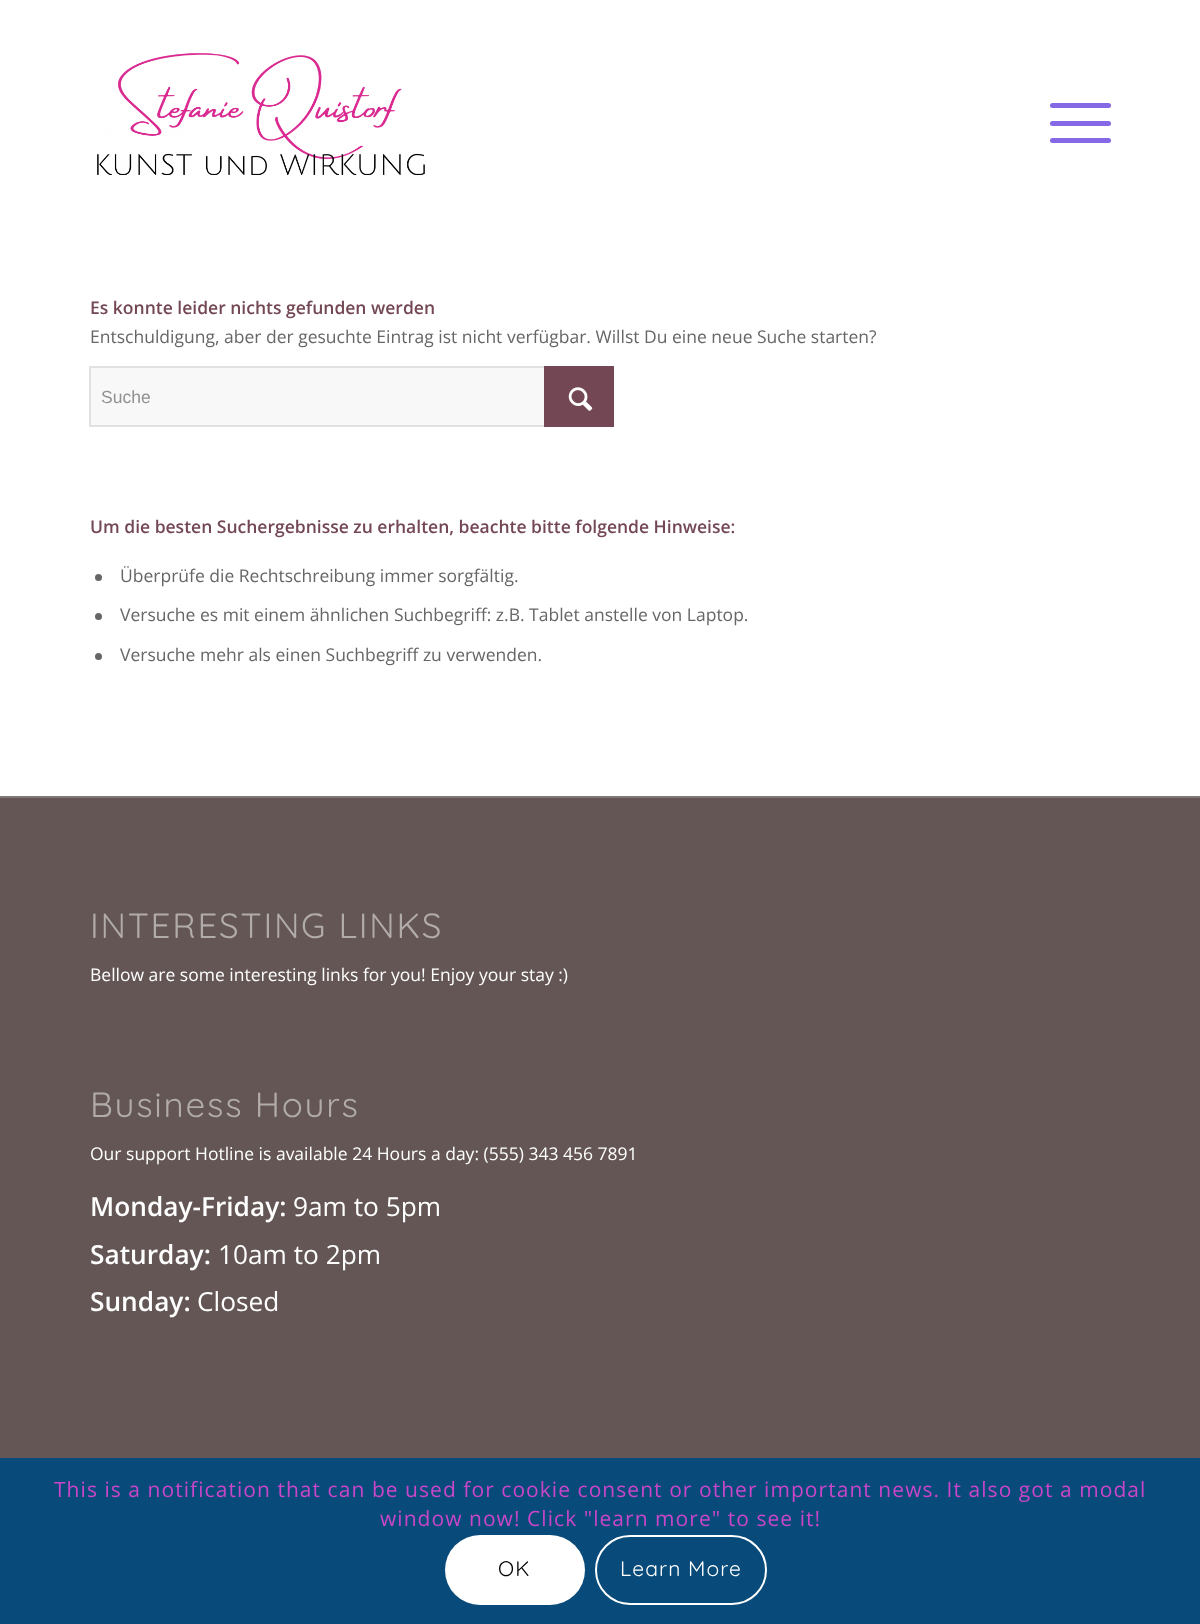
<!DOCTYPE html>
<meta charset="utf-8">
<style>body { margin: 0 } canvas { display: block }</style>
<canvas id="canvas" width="1200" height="1624"></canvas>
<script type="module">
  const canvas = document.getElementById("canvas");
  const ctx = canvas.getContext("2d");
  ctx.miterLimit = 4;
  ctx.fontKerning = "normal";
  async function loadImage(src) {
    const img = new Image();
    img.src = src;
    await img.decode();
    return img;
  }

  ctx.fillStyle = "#ffffff";
  ctx.fillRect(0, 0, 1200, 1624);
  ctx.drawImage(await loadImage("img1.png"), 97, 53, 328, 122);
  ctx.fillStyle = "#8568e6";
  ctx.beginPath();
  ctx.roundRect(1050, 121, 61, 5, 2.5);
  ctx.fill();
  ctx.beginPath();
  ctx.roundRect(1050, 103, 61, 5, 2.5);
  ctx.fill();
  ctx.beginPath();
  ctx.roundRect(1050, 138, 61, 5, 2.5);
  ctx.fill();
  ctx.font = "600 17.5px Open Sans";
  ctx.fillStyle = "#734854";
  ctx.fillText("Es konnte leider nichts gefunden werden", 90, 314);
  ctx.font = "17.5px Open Sans";
  ctx.fillStyle = "#666666";
  ctx.fillText("Entschuldigung, aber der gesuchte Eintrag ist nicht verfügbar. Willst Du eine neue Suche starten?", 90, 343);
  ctx.fillStyle = "#f8f8f8";
  ctx.fillRect(91, 368, 453, 57);
  ctx.strokeStyle = "#e1e1e1";
  ctx.lineWidth = 2;
  ctx.strokeRect(90, 367, 523, 59);
  ctx.font = "17.5px Liberation Sans";
  ctx.fillStyle = "#919191";
  ctx.fillText("Suche", 101, 403);
  ctx.fillStyle = "#734854";
  ctx.fillRect(544, 366, 70, 61);
  ctx.drawImage(await loadImage("img2.png"), 568, 387, 25, 24);
  ctx.font = "600 17.5px Open Sans";
  ctx.fillText("Um die besten Suchergebnisse zu erhalten, beachte bitte folgende Hinweise:", 90, 533);
  ctx.fillStyle = "#666666";
  ctx.beginPath();
  ctx.arc(98.5, 577.5, 3.5, 0, Math.PI * 2);
  ctx.fill();
  ctx.font = "17.5px Open Sans";
  ctx.fillText("Überprüfe die Rechtschreibung immer sorgfältig.", 120, 582);
  ctx.beginPath();
  ctx.arc(98.5, 616.5, 3.5, 0, Math.PI * 2);
  ctx.fill();
  ctx.fillText("Versuche es mit einem ähnlichen Suchbegriff: z.B. Tablet anstelle von Laptop.", 120, 621);
  ctx.beginPath();
  ctx.arc(98.5, 656.5, 3.5, 0, Math.PI * 2);
  ctx.fill();
  ctx.fillText("Versuche mehr als einen Suchbegriff zu verwenden.", 120, 661);
  ctx.fillStyle = "#635655";
  ctx.fillRect(0, 798, 1200, 660);
  ctx.fillStyle = "#807877";
  ctx.fillRect(0, 796, 1200, 2);
  ctx.letterSpacing = "1.75px";
  ctx.font = "35px Quicksand";
  ctx.fillStyle = "#b1abaa";
  ctx.fillText("INTERESTING LINKS", 90, 938);
  ctx.letterSpacing = "0px";
  ctx.font = "17.5px Open Sans";
  ctx.fillStyle = "#ffffff";
  ctx.fillText("Bellow are some interesting links for you! Enjoy your stay :)", 90, 981);
  ctx.letterSpacing = "1.75px";
  ctx.font = "35px Quicksand";
  ctx.fillStyle = "#b1abaa";
  ctx.fillText("Business Hours", 90, 1117);
  ctx.letterSpacing = "0px";
  ctx.font = "17.5px Open Sans";
  ctx.fillStyle = "#ffffff";
  ctx.fillText("Our support Hotline is available 24 Hours a day: (555) 343 456 7891", 90, 1160);
  ctx.font = "600 26.25px Open Sans";
  ctx.fillText("Monday-Friday:", 90, 1216);
  ctx.font = "26.25px Open Sans";
  ctx.fillText("9am to 5pm", 293, 1216);
  ctx.font = "600 26.25px Open Sans";
  ctx.fillText("Saturday:", 90, 1264);
  ctx.font = "26.25px Open Sans";
  ctx.fillText("10am to 2pm", 218, 1264);
  ctx.font = "600 26.25px Open Sans";
  ctx.fillText("Sunday:", 90, 1311);
  ctx.font = "26.25px Open Sans";
  ctx.fillText("Closed", 197, 1311);
  ctx.fillStyle = "#084a79";
  ctx.fillRect(0, 1458, 1200, 166);
  ctx.letterSpacing = "1.05px";
  ctx.font = "21px Open Sans";
  ctx.fillStyle = "#c946c9";
  ctx.fillText("This is a notification that can be used for cookie consent or other important news. It also got a modal", 54, 1497);
  ctx.fillText("window now! Click \"learn more\" to see it!", 380, 1526);
  ctx.fillStyle = "#ffffff";
  ctx.beginPath();
  ctx.roundRect(445, 1535, 140, 70, 35);
  ctx.fill();
  ctx.font = "21px Quicksand";
  ctx.fillStyle = "#000000";
  ctx.fillText("OK", 498, 1576);
  ctx.beginPath();
  ctx.roundRect(596, 1536, 170, 68, 34);
  ctx.strokeStyle = "#ffffff";
  ctx.stroke();
  ctx.fillStyle = "#ffffff";
  ctx.fillText("Learn More", 620, 1576);
</script>
